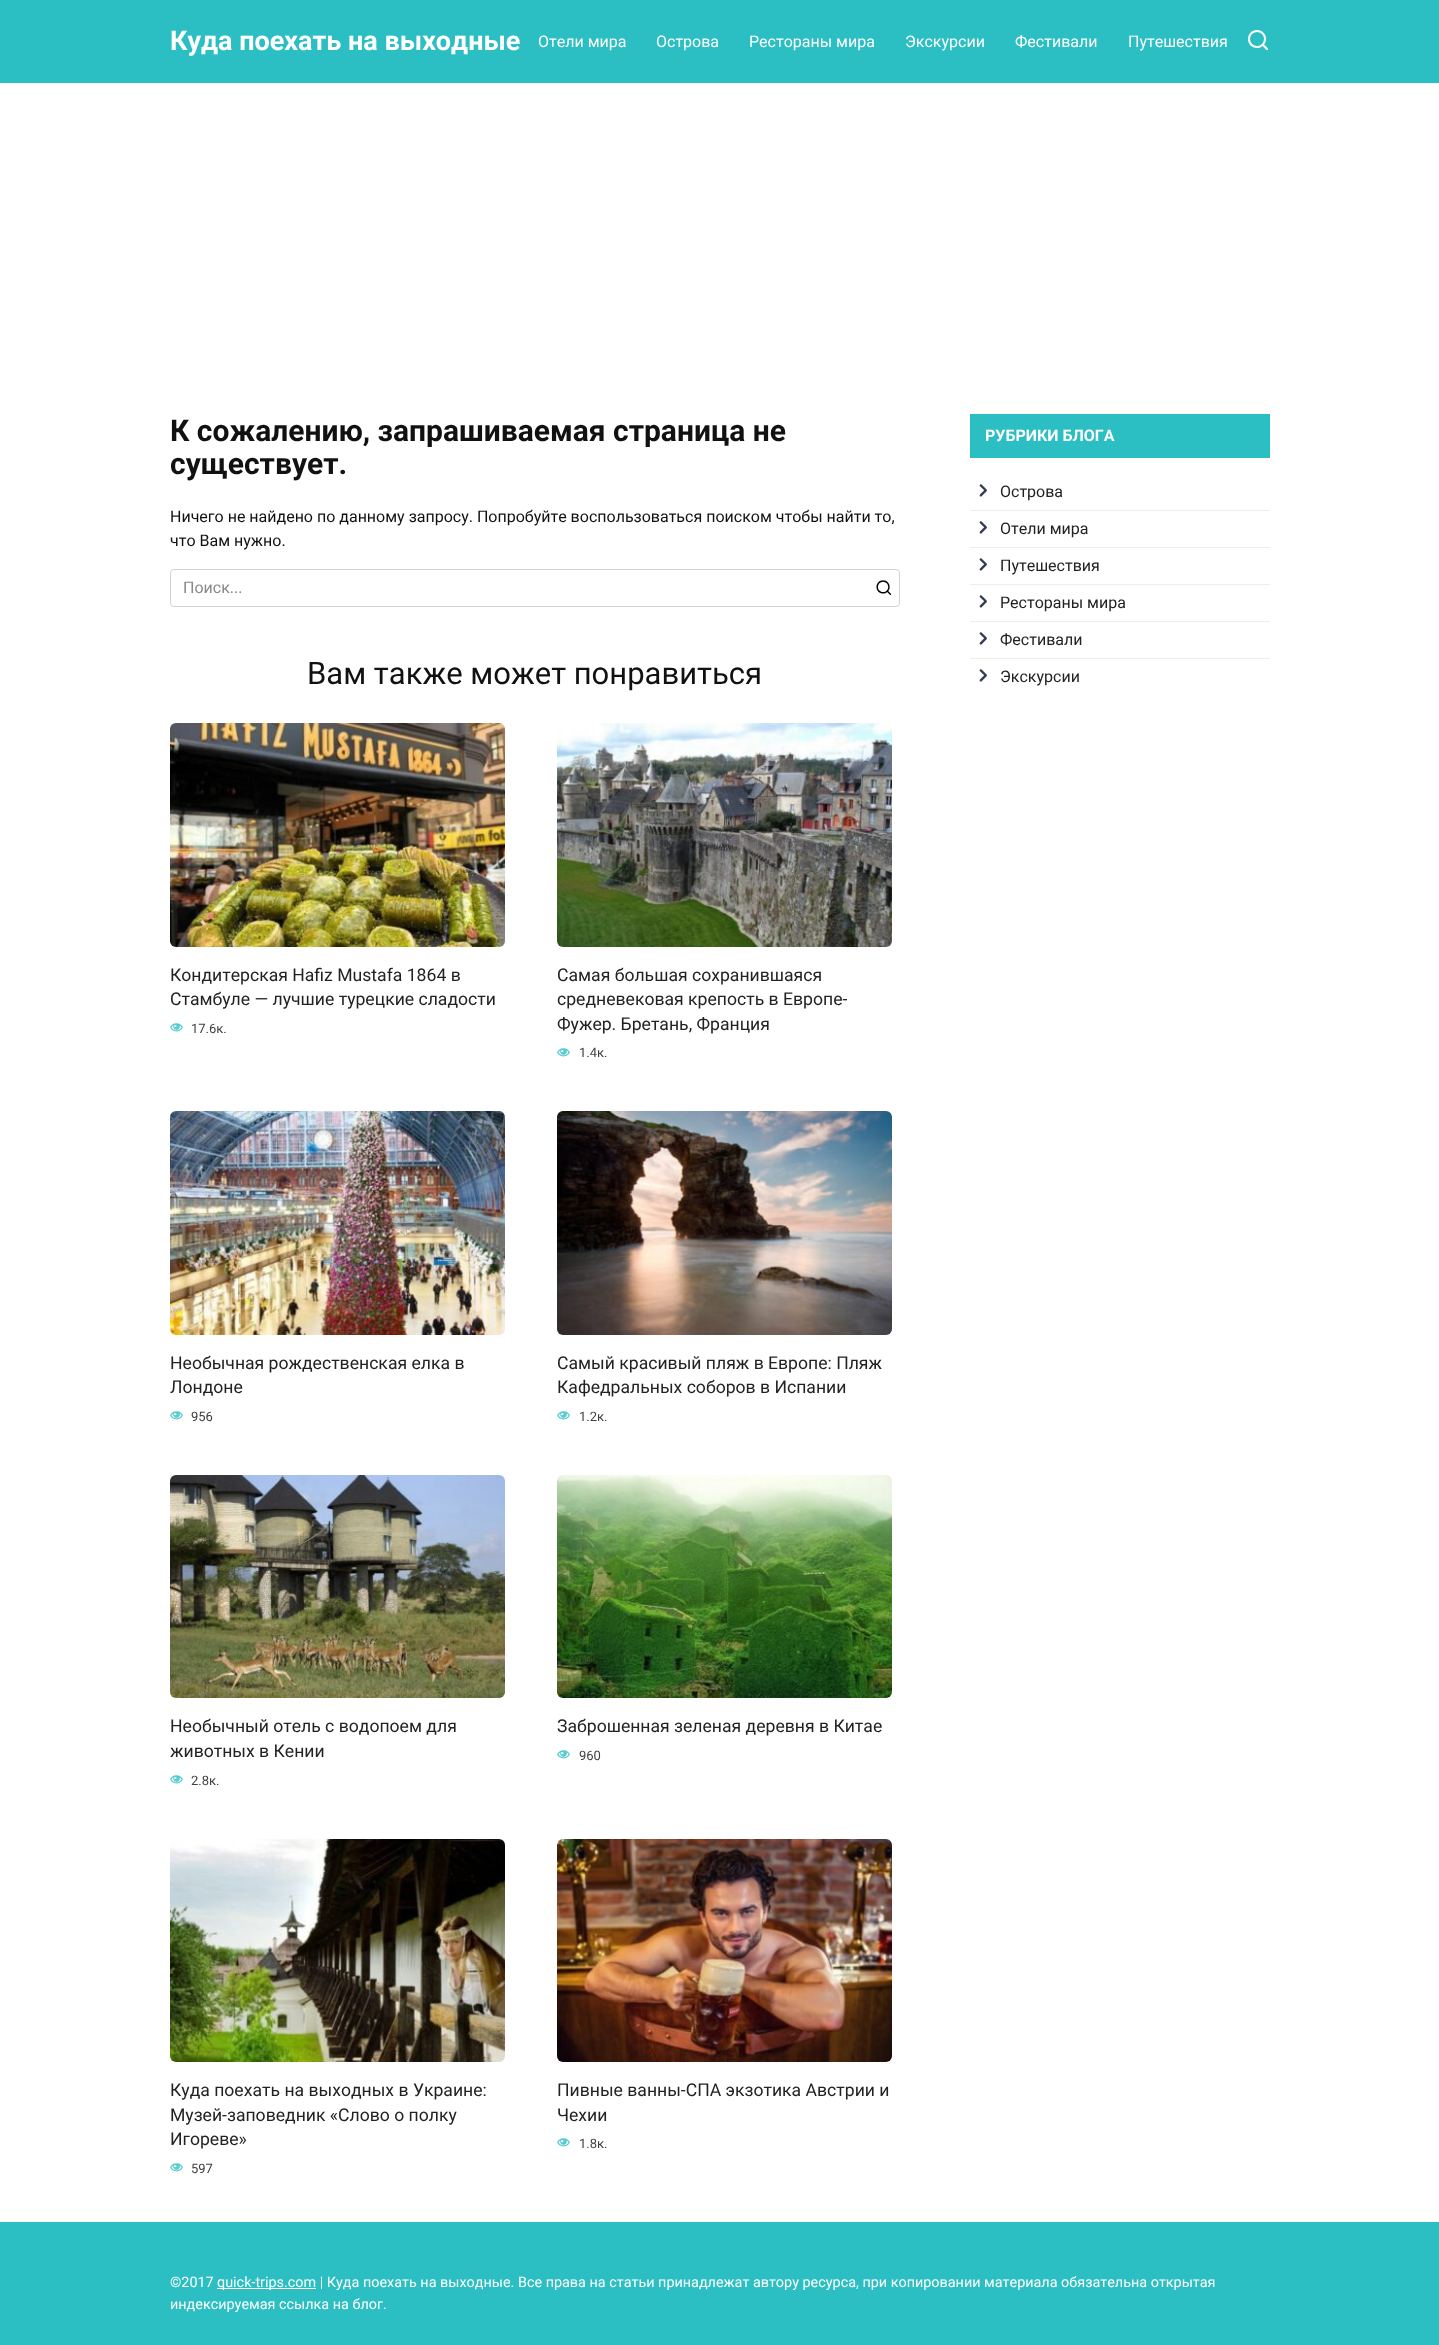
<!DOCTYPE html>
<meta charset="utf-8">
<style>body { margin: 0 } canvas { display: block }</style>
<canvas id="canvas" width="1439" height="2345"></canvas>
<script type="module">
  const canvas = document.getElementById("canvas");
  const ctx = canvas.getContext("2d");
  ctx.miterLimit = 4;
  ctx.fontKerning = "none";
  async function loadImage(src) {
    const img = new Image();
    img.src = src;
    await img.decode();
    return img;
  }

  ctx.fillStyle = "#ffffff";
  ctx.fillRect(0, 0, 1439, 2345);
  ctx.fillStyle = "#2bbfc4";
  ctx.fillRect(0, 0, 1439, 83);
  ctx.fillStyle = "#f3f3f3";
  ctx.fillRect(0, 83, 1439, 1);
  ctx.font = "bold 27px Roboto";
  ctx.fillStyle = "#ffffff";
  ctx.fillText("Куда поехать на выходные", 170, 50);
  ctx.font = "16px Roboto";
  ctx.fillText("Отели мира", 538, 47);
  ctx.fillText("Острова", 656, 47);
  ctx.fillText("Рестораны мира", 749, 47);
  ctx.fillText("Экскурсии", 905, 47);
  ctx.fillText("Фестивали", 1015, 47);
  ctx.fillText("Путешествия", 1128, 47);
  ctx.font = "24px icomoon";
  ctx.fillText("🔍", 1246, 50);
  ctx.font = "bold 30px Roboto";
  ctx.fillStyle = "#111111";
  ctx.fillText("К сожалению, запрашиваемая страница не", 170, 441);
  ctx.fillText("существует.", 170, 474);
  ctx.font = "16px Roboto";
  ctx.fillText("Ничего не найдено по данному запросу. Попробуйте воспользоваться поиском чтобы найти то,", 170, 522);
  ctx.fillText("что Вам нужно.", 170, 546);
  ctx.beginPath();
  ctx.roundRect(170.5, 569.5, 729, 37, 3.5);
  ctx.strokeStyle = "#ced4da";
  ctx.stroke();
  ctx.fillStyle = "#888888";
  ctx.fillText("Поиск...", 183, 593);
  ctx.font = "17.6px icomoon";
  ctx.fillStyle = "#000000";
  ctx.fillText("🔍", 875, 595);
  ctx.font = "31px Roboto";
  ctx.fillStyle = "#111111";
  ctx.fillText("Вам также может понравиться", 307, 684);
  ctx.drawImage(await loadImage("img1.png"), 170, 723, 335, 224);
  ctx.font = "17.6px Roboto";
  ctx.fillStyle = "#222222";
  ctx.fillText("Кондитерская Hafiz Mustafa 1864 в", 170, 981);
  ctx.fillText("Стамбуле — лучшие турецкие сладости", 170, 1005);
  ctx.font = "13px icomoon";
  ctx.fillStyle = "#55ccd0";
  ctx.fillText("👁", 170, 1033);
  ctx.font = "13px Roboto";
  ctx.fillStyle = "#414141";
  ctx.fillText("17.6к.", 191, 1033);
  ctx.drawImage(await loadImage("img2.png"), 557, 723, 335, 224);
  ctx.font = "17.6px Roboto";
  ctx.fillStyle = "#222222";
  ctx.fillText("Самая большая сохранившаяся", 557, 981);
  ctx.fillText("средневековая крепость в Европе-", 557, 1005);
  ctx.fillText("Фужер. Бретань, Франция", 557, 1030);
  ctx.font = "13px icomoon";
  ctx.fillStyle = "#55ccd0";
  ctx.fillText("👁", 557, 1058);
  ctx.font = "13px Roboto";
  ctx.fillStyle = "#414141";
  ctx.fillText("1.4к.", 579, 1057);
  ctx.drawImage(await loadImage("img3.png"), 170, 1111, 335, 224);
  ctx.font = "17.6px Roboto";
  ctx.fillStyle = "#222222";
  ctx.fillText("Необычная рождественская елка в", 170, 1369);
  ctx.fillText("Лондоне", 170, 1393);
  ctx.font = "13px icomoon";
  ctx.fillStyle = "#55ccd0";
  ctx.fillText("👁", 170, 1421);
  ctx.font = "13px Roboto";
  ctx.fillStyle = "#414141";
  ctx.fillText("956", 191, 1421);
  ctx.drawImage(await loadImage("img4.png"), 557, 1111, 335, 224);
  ctx.font = "17.6px Roboto";
  ctx.fillStyle = "#222222";
  ctx.fillText("Самый красивый пляж в Европе: Пляж", 557, 1369);
  ctx.fillText("Кафедральных соборов в Испании", 557, 1393);
  ctx.font = "13px icomoon";
  ctx.fillStyle = "#55ccd0";
  ctx.fillText("👁", 557, 1421);
  ctx.font = "13px Roboto";
  ctx.fillStyle = "#414141";
  ctx.fillText("1.2к.", 579, 1421);
  ctx.drawImage(await loadImage("img5.png"), 170, 1475, 335, 223);
  ctx.font = "17.6px Roboto";
  ctx.fillStyle = "#222222";
  ctx.fillText("Необычный отель с водопоем для", 170, 1732);
  ctx.fillText("животных в Кении", 170, 1757);
  ctx.font = "13px icomoon";
  ctx.fillStyle = "#55ccd0";
  ctx.fillText("👁", 170, 1785);
  ctx.font = "13px Roboto";
  ctx.fillStyle = "#414141";
  ctx.fillText("2.8к.", 191, 1785);
  ctx.drawImage(await loadImage("img6.png"), 557, 1475, 335, 223);
  ctx.font = "17.6px Roboto";
  ctx.fillStyle = "#222222";
  ctx.fillText("Заброшенная зеленая деревня в Китае", 557, 1732);
  ctx.font = "13px icomoon";
  ctx.fillStyle = "#55ccd0";
  ctx.fillText("👁", 557, 1760);
  ctx.font = "13px Roboto";
  ctx.fillStyle = "#414141";
  ctx.fillText("960", 579, 1760);
  ctx.drawImage(await loadImage("img7.png"), 170, 1839, 335, 223);
  ctx.font = "17.6px Roboto";
  ctx.fillStyle = "#222222";
  ctx.fillText("Куда поехать на выходных в Украине:", 170, 2096);
  ctx.fillText("Музей-заповедник «Слово о полку", 170, 2121);
  ctx.fillText("Игореве»", 170, 2145);
  ctx.font = "13px icomoon";
  ctx.fillStyle = "#55ccd0";
  ctx.fillText("👁", 170, 2173);
  ctx.font = "13px Roboto";
  ctx.fillStyle = "#414141";
  ctx.fillText("597", 191, 2173);
  ctx.drawImage(await loadImage("img8.png"), 557, 1839, 335, 223);
  ctx.font = "17.6px Roboto";
  ctx.fillStyle = "#222222";
  ctx.fillText("Пивные ванны-СПА экзотика Австрии и", 557, 2096);
  ctx.fillText("Чехии", 557, 2121);
  ctx.font = "13px icomoon";
  ctx.fillStyle = "#55ccd0";
  ctx.fillText("👁", 557, 2148);
  ctx.font = "13px Roboto";
  ctx.fillStyle = "#414141";
  ctx.fillText("1.8к.", 579, 2148);
  ctx.fillStyle = "#2bbfc4";
  ctx.fillRect(970, 414, 300, 44);
  ctx.font = "bold 16px Roboto";
  ctx.fillStyle = "#ffffff";
  ctx.fillText("РУБРИКИ БЛОГА", 985, 441);
  ctx.fillStyle = "#eeeeee";
  ctx.fillRect(970, 510, 300, 1);
  ctx.font = "bold 20px icomoon";
  ctx.fillStyle = "#343c55";
  ctx.fillText("⮞", 973, 499);
  ctx.font = "16px Roboto";
  ctx.fillStyle = "#222222";
  ctx.fillText("Острова", 1000, 497);
  ctx.fillStyle = "#eeeeee";
  ctx.fillRect(970, 547, 300, 1);
  ctx.font = "bold 20px icomoon";
  ctx.fillStyle = "#343c55";
  ctx.fillText("⮞", 973, 536);
  ctx.font = "16px Roboto";
  ctx.fillStyle = "#222222";
  ctx.fillText("Отели мира", 1000, 534);
  ctx.fillStyle = "#eeeeee";
  ctx.fillRect(970, 584, 300, 1);
  ctx.font = "bold 20px icomoon";
  ctx.fillStyle = "#343c55";
  ctx.fillText("⮞", 973, 573);
  ctx.font = "16px Roboto";
  ctx.fillStyle = "#222222";
  ctx.fillText("Путешествия", 1000, 571);
  ctx.fillStyle = "#eeeeee";
  ctx.fillRect(970, 621, 300, 1);
  ctx.font = "bold 20px icomoon";
  ctx.fillStyle = "#343c55";
  ctx.fillText("⮞", 973, 610);
  ctx.font = "16px Roboto";
  ctx.fillStyle = "#222222";
  ctx.fillText("Рестораны мира", 1000, 608);
  ctx.fillStyle = "#eeeeee";
  ctx.fillRect(970, 658, 300, 1);
  ctx.font = "bold 20px icomoon";
  ctx.fillStyle = "#343c55";
  ctx.fillText("⮞", 973, 647);
  ctx.font = "16px Roboto";
  ctx.fillStyle = "#222222";
  ctx.fillText("Фестивали", 1000, 645);
  ctx.font = "bold 20px icomoon";
  ctx.fillStyle = "#343c55";
  ctx.fillText("⮞", 973, 684);
  ctx.font = "16px Roboto";
  ctx.fillStyle = "#222222";
  ctx.fillText("Экскурсии", 1000, 682);
  ctx.fillStyle = "#2bbfc4";
  ctx.fillRect(0, 2222, 1439, 123);
  ctx.font = "14.4px Roboto";
  ctx.fillStyle = "#ffffff";
  ctx.fillText("©2017", 170, 2287);
  ctx.fillRect(217, 2288, 99, 1);
  ctx.fillText("quick-trips.com | Куда поехать на выходные. Все права на статьи принадлежат автору ресурса, при копировании материала обязательна открытая", 217, 2287);
  ctx.fillText("индексируемая ссылка на блог.", 170, 2309);
</script>
